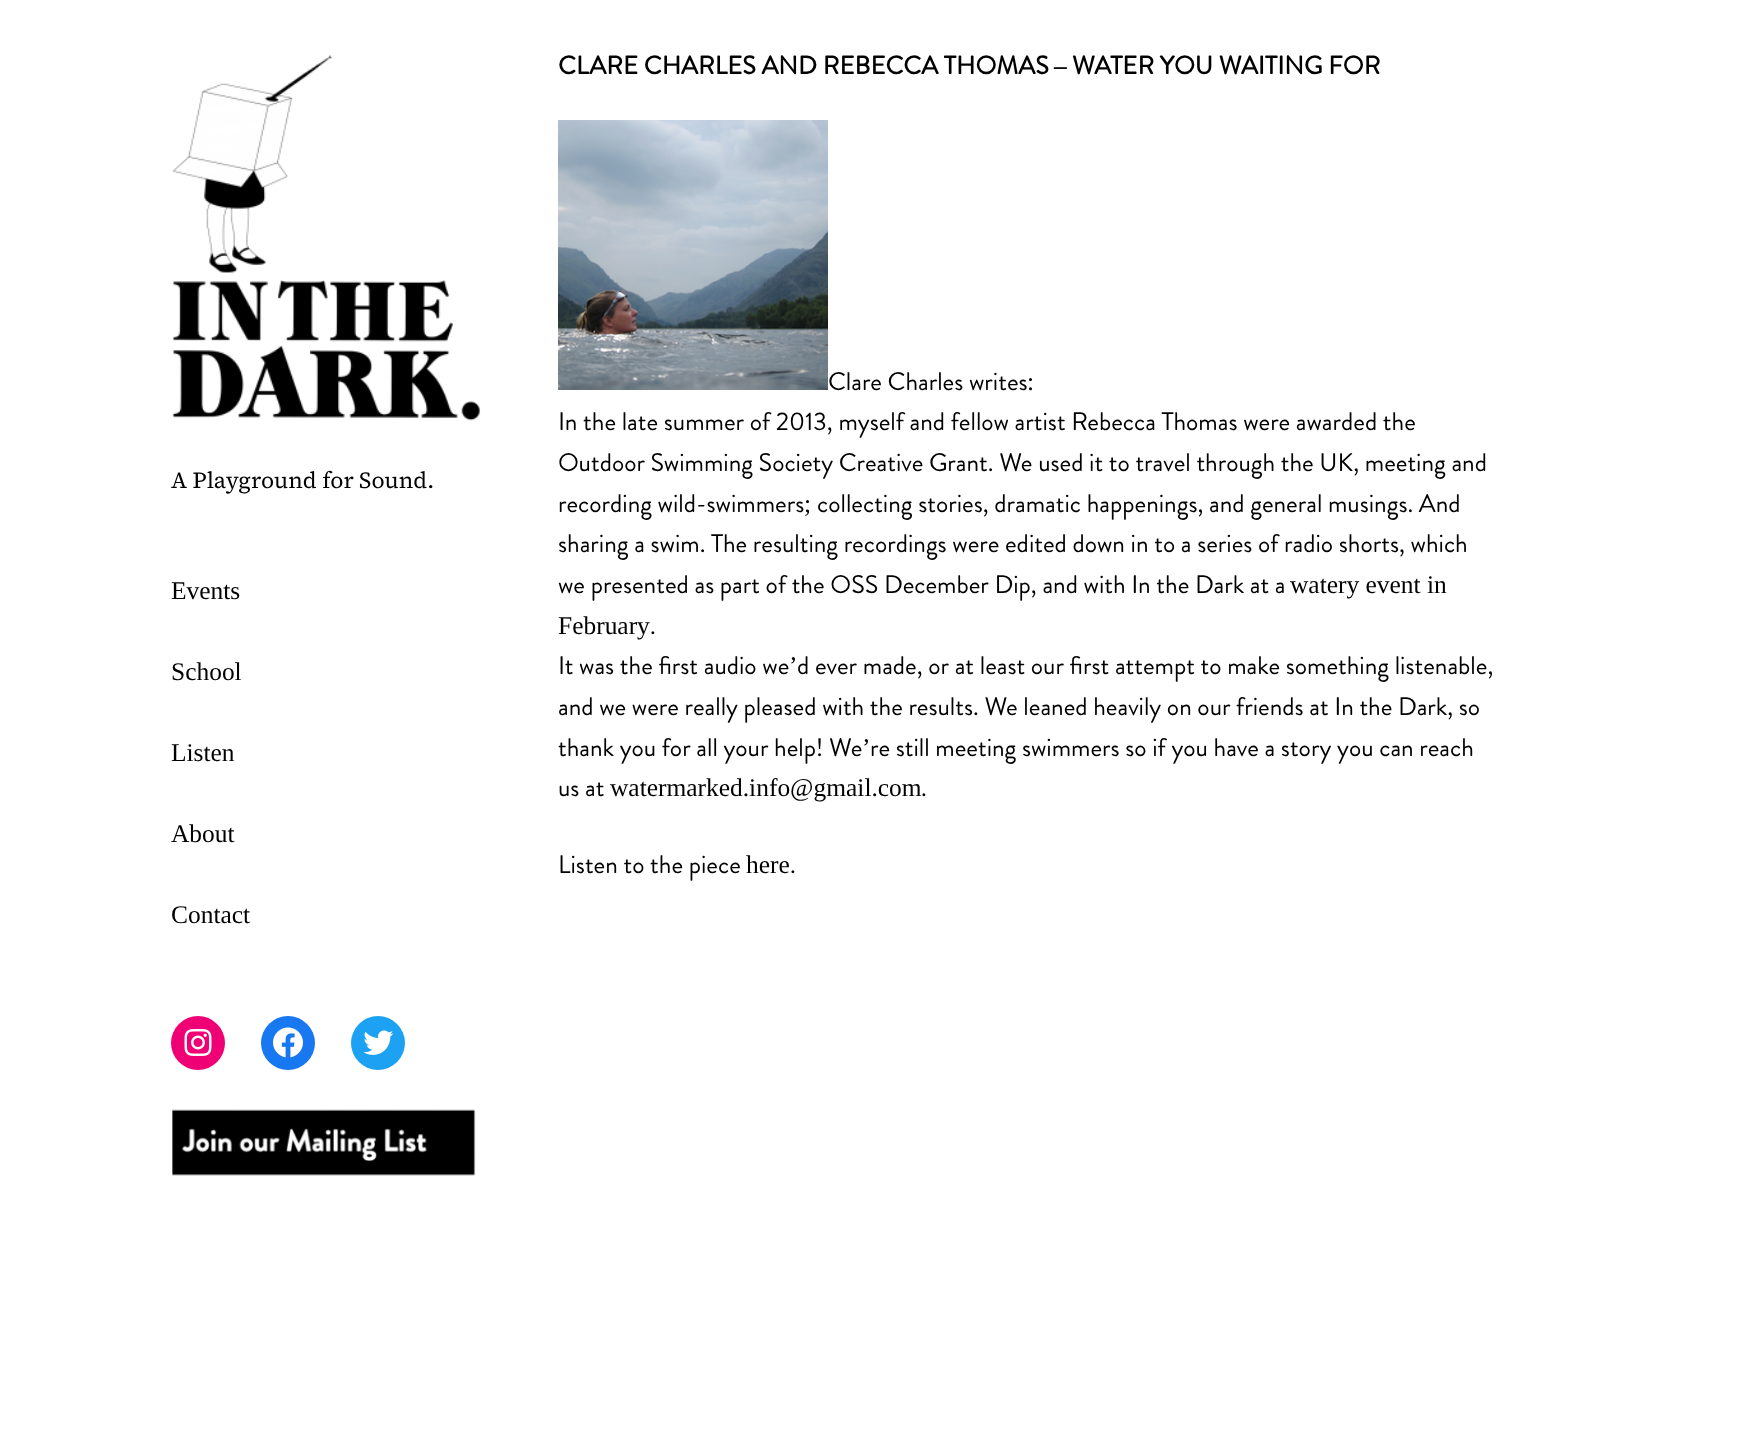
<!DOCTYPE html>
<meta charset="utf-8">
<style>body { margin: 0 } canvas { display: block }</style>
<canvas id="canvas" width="1745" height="1434"></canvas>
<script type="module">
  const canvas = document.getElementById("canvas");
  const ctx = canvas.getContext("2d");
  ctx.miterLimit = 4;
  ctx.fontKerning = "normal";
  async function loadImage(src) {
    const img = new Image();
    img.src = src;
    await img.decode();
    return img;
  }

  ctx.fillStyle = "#ffffff";
  ctx.fillRect(0, 0, 1745, 1434);
  ctx.drawImage(await loadImage("img1.png"), 172, 54, 309, 367);
  ctx.font = "23px 'Source Serif 4'";
  ctx.fillStyle = "#000000";
  ctx.fillText("A Playground for Sound.", 171, 488);
  ctx.font = "25.45px Liberation Serif";
  ctx.fillText("Events", 171, 599);
  ctx.fillText("School", 171, 680);
  ctx.fillText("Listen", 171, 761);
  ctx.fillText("About", 171, 842);
  ctx.fillText("Contact", 171, 923);
  ctx.fillStyle = "#f00075";
  ctx.beginPath();
  ctx.arc(198, 1043, 27, 0, Math.PI * 2);
  ctx.fill();
  ctx.drawImage(await loadImage("img2.png"), 184, 1029, 28, 27);
  ctx.fillStyle = "#1778f2";
  ctx.beginPath();
  ctx.arc(288, 1043, 27, 0, Math.PI * 2);
  ctx.fill();
  ctx.drawImage(await loadImage("img3.png"), 273, 1027, 30, 31);
  ctx.fillStyle = "#1da1f2";
  ctx.beginPath();
  ctx.arc(378, 1043, 27, 0, Math.PI * 2);
  ctx.fill();
  ctx.drawImage(await loadImage("img4.png"), 363, 1030, 31, 25);
  ctx.drawImage(await loadImage("img5.png"), 172, 1109, 304, 67);
  ctx.font = "bold 25.45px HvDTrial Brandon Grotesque";
  ctx.fillStyle = "#000000";
  ctx.fillText("CLARE CHARLES AND REBECCA THOMAS", 558, 74);
  ctx.font = "bold 25.45px Liberation Serif";
  ctx.fillText("–", 1054, 74);
  ctx.font = "bold 25.45px HvDTrial Brandon Grotesque";
  ctx.fillText("WATER YOU WAITING FOR", 1072, 74);
  ctx.drawImage(await loadImage("img6.png"), 558, 120, 270, 270);
  ctx.font = "25.45px HvDTrial Brandon Grotesque";
  ctx.fillText("Clare Charles writes", 828, 390);
  ctx.font = "25.45px Liberation Serif";
  ctx.fillText(":", 1027, 390);
  ctx.font = "25.45px HvDTrial Brandon Grotesque";
  ctx.fillText("In the late summer of 2013, myself and fellow artist Rebecca Thomas were awarded the", 558, 430);
  ctx.fillText("Outdoor Swimming Society Creative Grant. We used it to travel through the UK, meeting and", 558, 471);
  ctx.fillText("recording wild-swimmers", 558, 512);
  ctx.font = "25.45px Liberation Serif";
  ctx.fillText(";", 804, 512);
  ctx.font = "25.45px HvDTrial Brandon Grotesque";
  ctx.fillText("collecting stories, dramatic happenings, and general musings. And", 817, 512);
  ctx.fillText("sharing a swim. The resulting recordings were edited down in to a series of radio shorts, which", 558, 552);
  ctx.fillText("we presented as part of the OSS December Dip, and with In the Dark at a", 558, 593);
  ctx.font = "25.45px Liberation Serif";
  ctx.fillText("watery event in", 1290, 593);
  ctx.fillText("February", 558, 634);
  ctx.font = "25.45px HvDTrial Brandon Grotesque";
  ctx.fillText(".", 650, 634);
  ctx.fillText("It was the first audio we", 558, 674);
  ctx.font = "25.45px Liberation Serif";
  ctx.fillText("’", 789, 674);
  ctx.font = "25.45px HvDTrial Brandon Grotesque";
  ctx.fillText("d ever made, or at least our first attempt to make something listenable,", 797, 674);
  ctx.fillText("and we were really pleased with the results. We leaned heavily on our friends at In the Dark, so", 558, 715);
  ctx.fillText("thank you for all your help! We", 558, 756);
  ctx.font = "25.45px Liberation Serif";
  ctx.fillText("’", 862, 756);
  ctx.font = "25.45px HvDTrial Brandon Grotesque";
  ctx.fillText("re still meeting swimmers so if you have a story you can reach", 870, 756);
  ctx.fillText("us at", 558, 796);
  ctx.font = "25.45px Liberation Serif";
  ctx.fillText("watermarked.info@gmail.com", 610, 796);
  ctx.font = "25.45px HvDTrial Brandon Grotesque";
  ctx.fillText(".", 921, 796);
  ctx.fillText("Listen to the piece", 558, 873);
  ctx.font = "25.45px Liberation Serif";
  ctx.fillText("here", 746, 873);
  ctx.font = "25.45px HvDTrial Brandon Grotesque";
  ctx.fillText(".", 790, 873);
</script>
